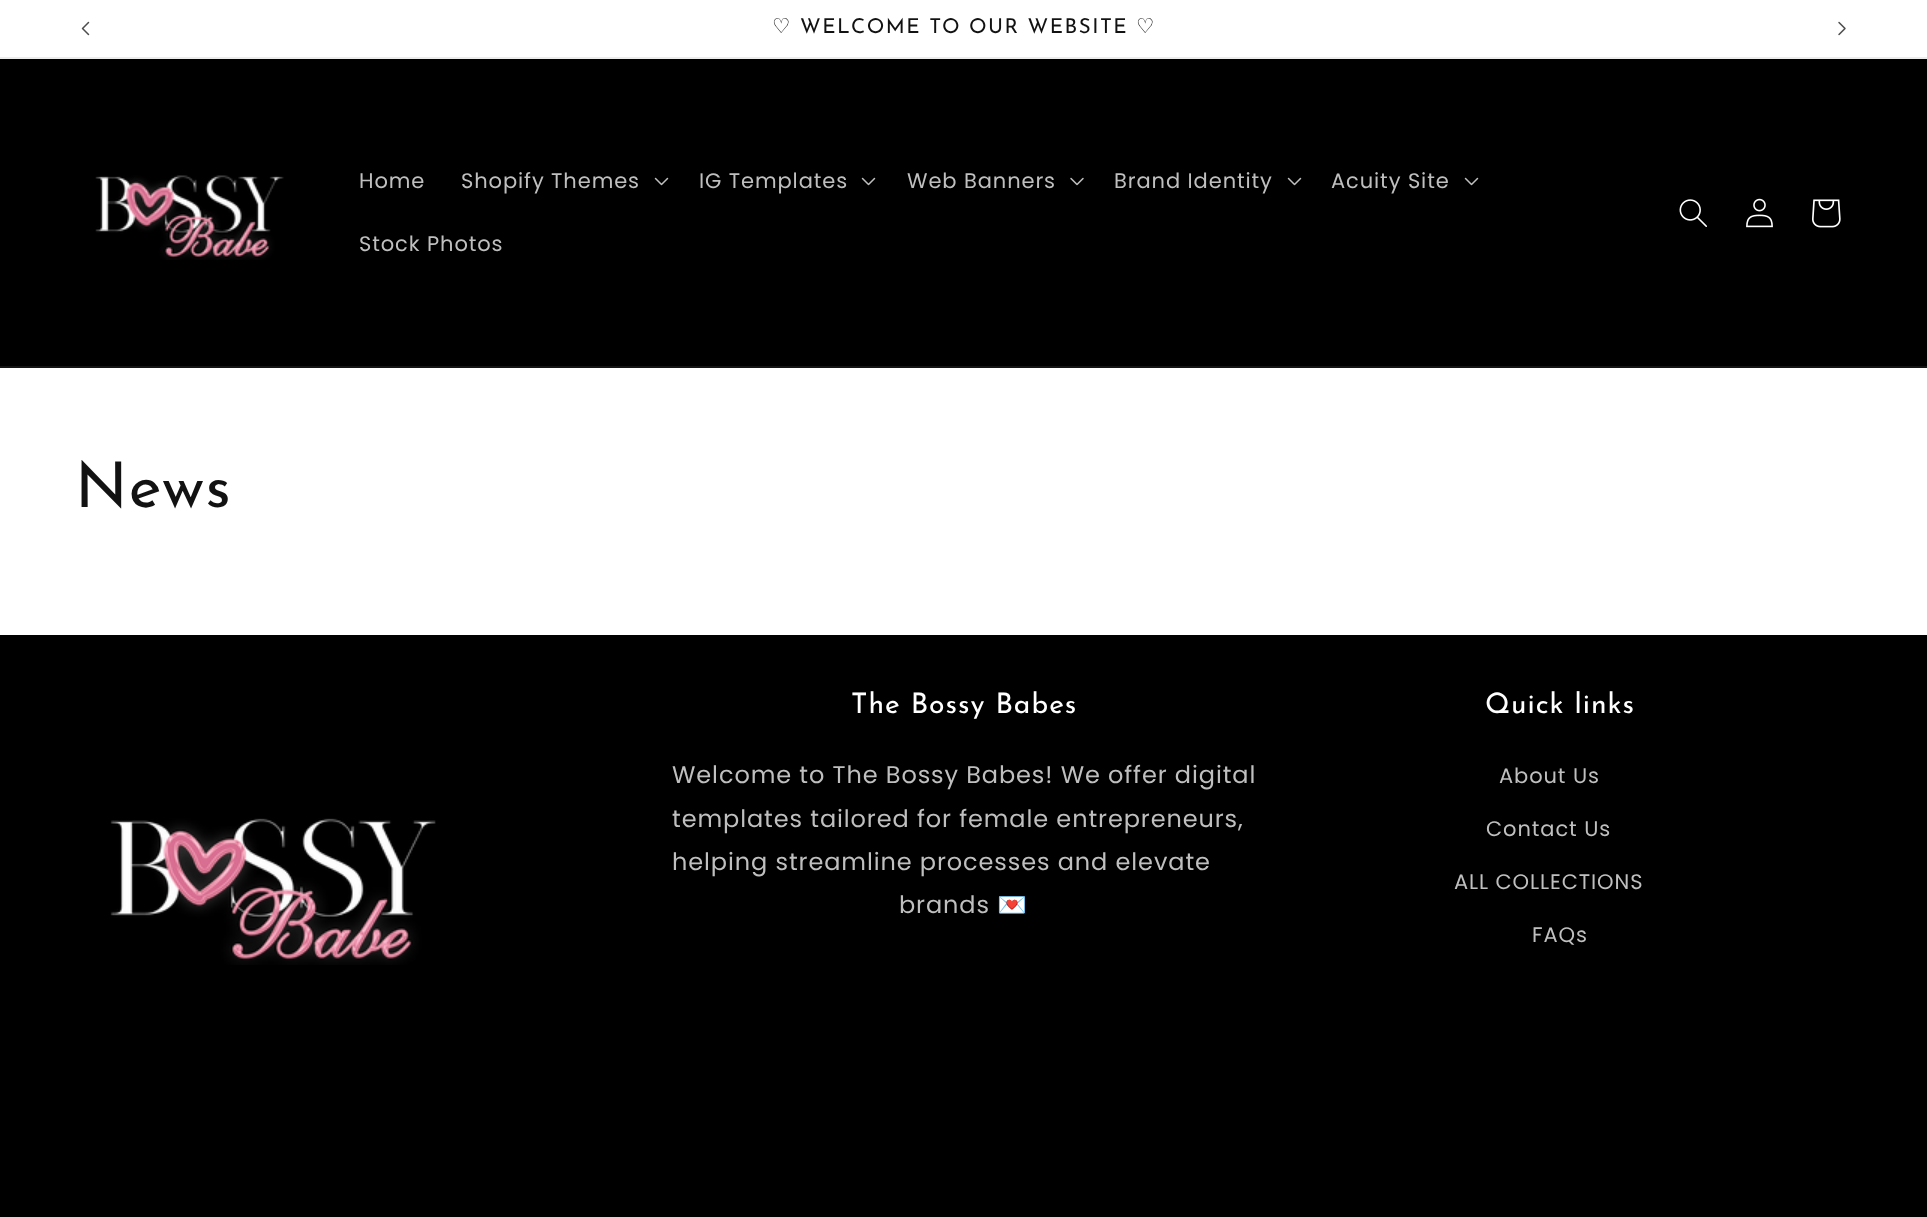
<!DOCTYPE html>
<meta charset="utf-8">
<style>body { margin: 0 } canvas { display: block }</style>
<canvas id="canvas" width="1927" height="1217"></canvas>
<script type="module">
  const canvas = document.getElementById("canvas");
  const ctx = canvas.getContext("2d");
  ctx.miterLimit = 4;
  ctx.fontKerning = "normal";
  async function loadImage(src) {
    const img = new Image();
    img.src = src;
    await img.decode();
    return img;
  }

  ctx.fillStyle = "#ffffff";
  ctx.fillRect(0, 0, 1927, 1217);
  ctx.fillStyle = "#ececec";
  ctx.fillRect(0, 57, 1927, 2);
  ctx.drawImage(await loadImage("img1.png"), 81, 21, 9, 15);
  ctx.letterSpacing = "1.5px";
  ctx.font = "20.5px DejaVu Sans";
  ctx.fillStyle = "#121212";
  ctx.fillText("♡", 772, 33);
  ctx.font = "20.5px Josefin Sans";
  ctx.fillText("WELCOME TO OUR WEBSITE", 800, 33);
  ctx.font = "20.5px DejaVu Sans";
  ctx.fillText("♡", 1136, 33);
  ctx.drawImage(await loadImage("img2.png"), 1838, 21, 8, 15);
  ctx.fillStyle = "#000000";
  ctx.fillRect(0, 59, 1927, 307);
  ctx.fillStyle = "#141414";
  ctx.fillRect(0, 366, 1927, 2);
  ctx.drawImage(await loadImage("img3.png"), 95, 175, 189, 85);
  ctx.letterSpacing = "0.9px";
  ctx.font = "21px Poppins";
  ctx.fillStyle = "#bfbfbf";
  ctx.fillText("Home", 359, 188);
  ctx.fillText("Shopify Themes", 461, 188);
  ctx.drawImage(await loadImage("img4.png"), 654, 177, 15, 9);
  ctx.fillText("IG Templates", 699, 188);
  ctx.drawImage(await loadImage("img4.png"), 861, 177, 15, 9);
  ctx.fillText("Web Banners", 907, 188);
  ctx.drawImage(await loadImage("img5.png"), 1070, 177, 14, 9);
  ctx.fillText("Brand Identity", 1114, 188);
  ctx.drawImage(await loadImage("img4.png"), 1287, 177, 15, 9);
  ctx.fillText("Acuity Site", 1331, 188);
  ctx.drawImage(await loadImage("img4.png"), 1464, 177, 15, 9);
  ctx.fillText("Stock Photos", 359, 251);
  ctx.drawImage(await loadImage("img6.png"), 1679, 199, 28, 28);
  ctx.drawImage(await loadImage("img7.png"), 1746, 198, 27, 30);
  ctx.drawImage(await loadImage("img8.png"), 1812, 199, 29, 29);
  ctx.letterSpacing = "1px";
  ctx.font = "63px Josefin Sans";
  ctx.fillStyle = "#121212";
  ctx.fillText("News", 75, 507);
  ctx.fillStyle = "#000000";
  ctx.fillRect(0, 635, 1927, 582);
  ctx.drawImage(await loadImage("img9.png"), 110, 818, 326, 147);
  ctx.font = "28.25px Josefin Sans";
  ctx.fillStyle = "#ffffff";
  ctx.fillText("The Bossy Babes", 851, 713);
  ctx.letterSpacing = "0.9px";
  ctx.font = "24px Poppins";
  ctx.fillStyle = "#bfbfbf";
  ctx.fillText("Welcome to The Bossy Babes! We offer digital", 672, 783);
  ctx.fillText("templates tailored for female entrepreneurs,", 672, 827);
  ctx.fillText("helping streamline processes and elevate", 672, 870);
  ctx.fillText("brands", 899, 913);
  ctx.font = "24px Noto Color Emoji";
  ctx.fillText("💌", 997, 913);
  ctx.letterSpacing = "1px";
  ctx.font = "28.25px Josefin Sans";
  ctx.fillStyle = "#ffffff";
  ctx.fillText("Quick links", 1485, 713);
  ctx.letterSpacing = "0.9px";
  ctx.font = "21px Poppins";
  ctx.fillStyle = "#bfbfbf";
  ctx.fillText("About Us", 1499, 783);
  ctx.fillText("Contact Us", 1486, 836);
  ctx.fillText("ALL COLLECTIONS", 1454, 889);
  ctx.fillText("FAQs", 1532, 942);
</script>
